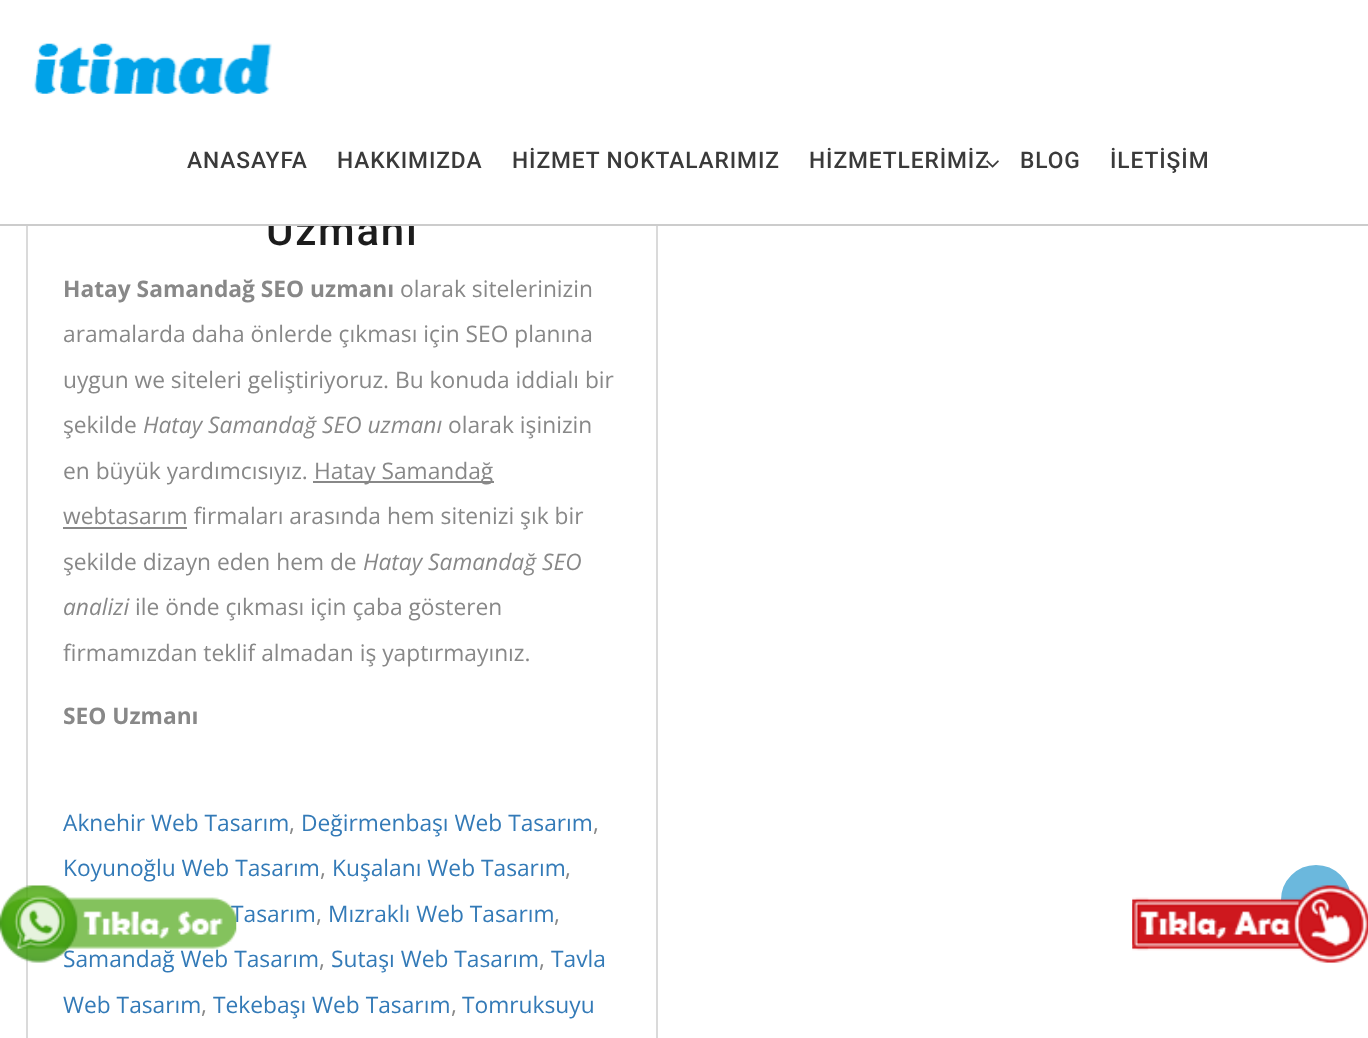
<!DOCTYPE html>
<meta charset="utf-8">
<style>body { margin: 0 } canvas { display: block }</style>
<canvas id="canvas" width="1368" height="1038"></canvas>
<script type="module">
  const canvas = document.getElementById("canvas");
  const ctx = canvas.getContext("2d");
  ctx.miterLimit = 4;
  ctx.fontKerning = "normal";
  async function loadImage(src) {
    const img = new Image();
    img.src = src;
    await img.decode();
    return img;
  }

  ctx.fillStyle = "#ffffff";
  ctx.fillRect(0, 0, 1368, 1038);
  ctx.strokeStyle = "#dadada";
  ctx.lineWidth = 2;
  ctx.strokeRect(27, -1, 630, 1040);
  ctx.letterSpacing = "1.75px";
  ctx.font = "500 42px Roboto";
  ctx.fillStyle = "#1c1c1c";
  ctx.fillText("Uzmanı", 266, 245);
  ctx.fillStyle = "#ffffff";
  ctx.fillRect(26, 0, 632, 224);
  ctx.fillStyle = "#cccccc";
  ctx.fillRect(0, 224, 1368, 2);
  ctx.drawImage(await loadImage("img1.png"), 34, 43, 238, 51);
  ctx.letterSpacing = "0.9px";
  ctx.font = "500 22.75px Roboto";
  ctx.fillStyle = "#3a3a3a";
  ctx.fillText("ANASAYFA", 187, 168);
  ctx.fillText("HAKKIMIZDA", 337, 168);
  ctx.fillText("HİZMET NOKTALARIMIZ", 512, 168);
  ctx.fillText("HİZMETLERİMİZ", 809, 168);
  ctx.drawImage(await loadImage("img2.png"), 986, 160, 13, 8);
  ctx.fillText("BLOG", 1020, 168);
  ctx.fillText("İLETİŞİM", 1110, 168);
  ctx.letterSpacing = "0px";
  ctx.font = "bold 22.75px Open Sans";
  ctx.fillStyle = "#888888";
  ctx.fillText("Hatay Samandağ SEO uzmanı", 63, 297);
  ctx.font = "22.75px Open Sans";
  ctx.fillText("olarak sitelerinizin", 400, 297);
  ctx.fillText("aramalarda daha önlerde çıkması için SEO planına", 63, 342);
  ctx.fillText("uygun we siteleri geliştiriyoruz. Bu konuda iddialı bir", 63, 388);
  ctx.fillText("şekilde", 63, 433);
  ctx.font = "italic 22.75px Open Sans";
  ctx.fillText("Hatay Samandağ SEO uzmanı", 143, 433);
  ctx.font = "22.75px Open Sans";
  ctx.fillText("olarak işinizin", 448, 433);
  ctx.fillText("en büyük yardımcısıyız.", 63, 479);
  ctx.fillRect(313, 481, 181, 2);
  ctx.fillText("Hatay Samandağ", 314, 479);
  ctx.fillRect(63, 527, 124, 2);
  ctx.fillText("webtasarım firmaları arasında hem sitenizi şık bir", 63, 524);
  ctx.fillText("şekilde dizayn eden hem de", 63, 570);
  ctx.font = "italic 22.75px Open Sans";
  ctx.fillText("Hatay Samandağ SEO", 363, 570);
  ctx.fillText("analizi", 63, 615);
  ctx.font = "22.75px Open Sans";
  ctx.fillText("ile önde çıkması için çaba gösteren", 135, 615);
  ctx.fillText("firmamızdan teklif almadan iş yaptırmayınız.", 63, 661);
  ctx.font = "bold 22.75px Open Sans";
  ctx.fillText("SEO Uzmanı", 63, 724);
  ctx.font = "22.75px Open Sans";
  ctx.fillStyle = "#337ab7";
  ctx.fillText("Aknehir Web Tasarım", 63, 831);
  ctx.fillStyle = "#888888";
  ctx.fillText(",", 289, 831);
  ctx.fillStyle = "#337ab7";
  ctx.fillText("Değirmenbaşı Web Tasarım", 301, 831);
  ctx.fillStyle = "#888888";
  ctx.fillText(",", 593, 831);
  ctx.fillStyle = "#337ab7";
  ctx.fillText("Koyunoğlu Web Tasarım", 63, 876);
  ctx.fillStyle = "#888888";
  ctx.fillText(",", 320, 876);
  ctx.fillStyle = "#337ab7";
  ctx.fillText("Kuşalanı Web Tasarım", 332, 876);
  ctx.fillStyle = "#888888";
  ctx.fillText(",", 565, 876);
  ctx.fillStyle = "#337ab7";
  ctx.fillText("Tasarım", 231, 922);
  ctx.fillStyle = "#888888";
  ctx.fillText(",", 316, 922);
  ctx.fillStyle = "#337ab7";
  ctx.fillText("Mızraklı Web Tasarım", 328, 922);
  ctx.fillStyle = "#888888";
  ctx.fillText(",", 554, 922);
  ctx.fillStyle = "#337ab7";
  ctx.fillText("Samandağ Web Tasarım", 63, 967);
  ctx.fillStyle = "#888888";
  ctx.fillText(",", 319, 967);
  ctx.fillStyle = "#337ab7";
  ctx.fillText("Sutaşı Web Tasarım", 331, 967);
  ctx.fillStyle = "#888888";
  ctx.fillText(",", 539, 967);
  ctx.fillStyle = "#337ab7";
  ctx.fillText("Tavla", 551, 967);
  ctx.fillText("Web Tasarım", 63, 1013);
  ctx.fillStyle = "#888888";
  ctx.fillText(",", 201, 1013);
  ctx.fillStyle = "#337ab7";
  ctx.fillText("Tekebaşı Web Tasarım", 213, 1013);
  ctx.fillStyle = "#888888";
  ctx.fillText(",", 451, 1013);
  ctx.fillStyle = "#337ab7";
  ctx.fillText("Tomruksuyu", 462, 1013);
  ctx.fillStyle = "#6bb8dd";
  ctx.beginPath();
  ctx.arc(1316, 900, 34, 0, Math.PI * 2);
  ctx.fill();
  ctx.strokeStyle = "#6bb8dd";
  ctx.stroke();
  ctx.drawImage(await loadImage("img3.png"), 1314, 889, 4, 3);
  ctx.drawImage(await loadImage("img4.png"), 0, 885, 237, 78);
  ctx.drawImage(await loadImage("img5.png"), 1132, 885, 236, 78);
</script>
